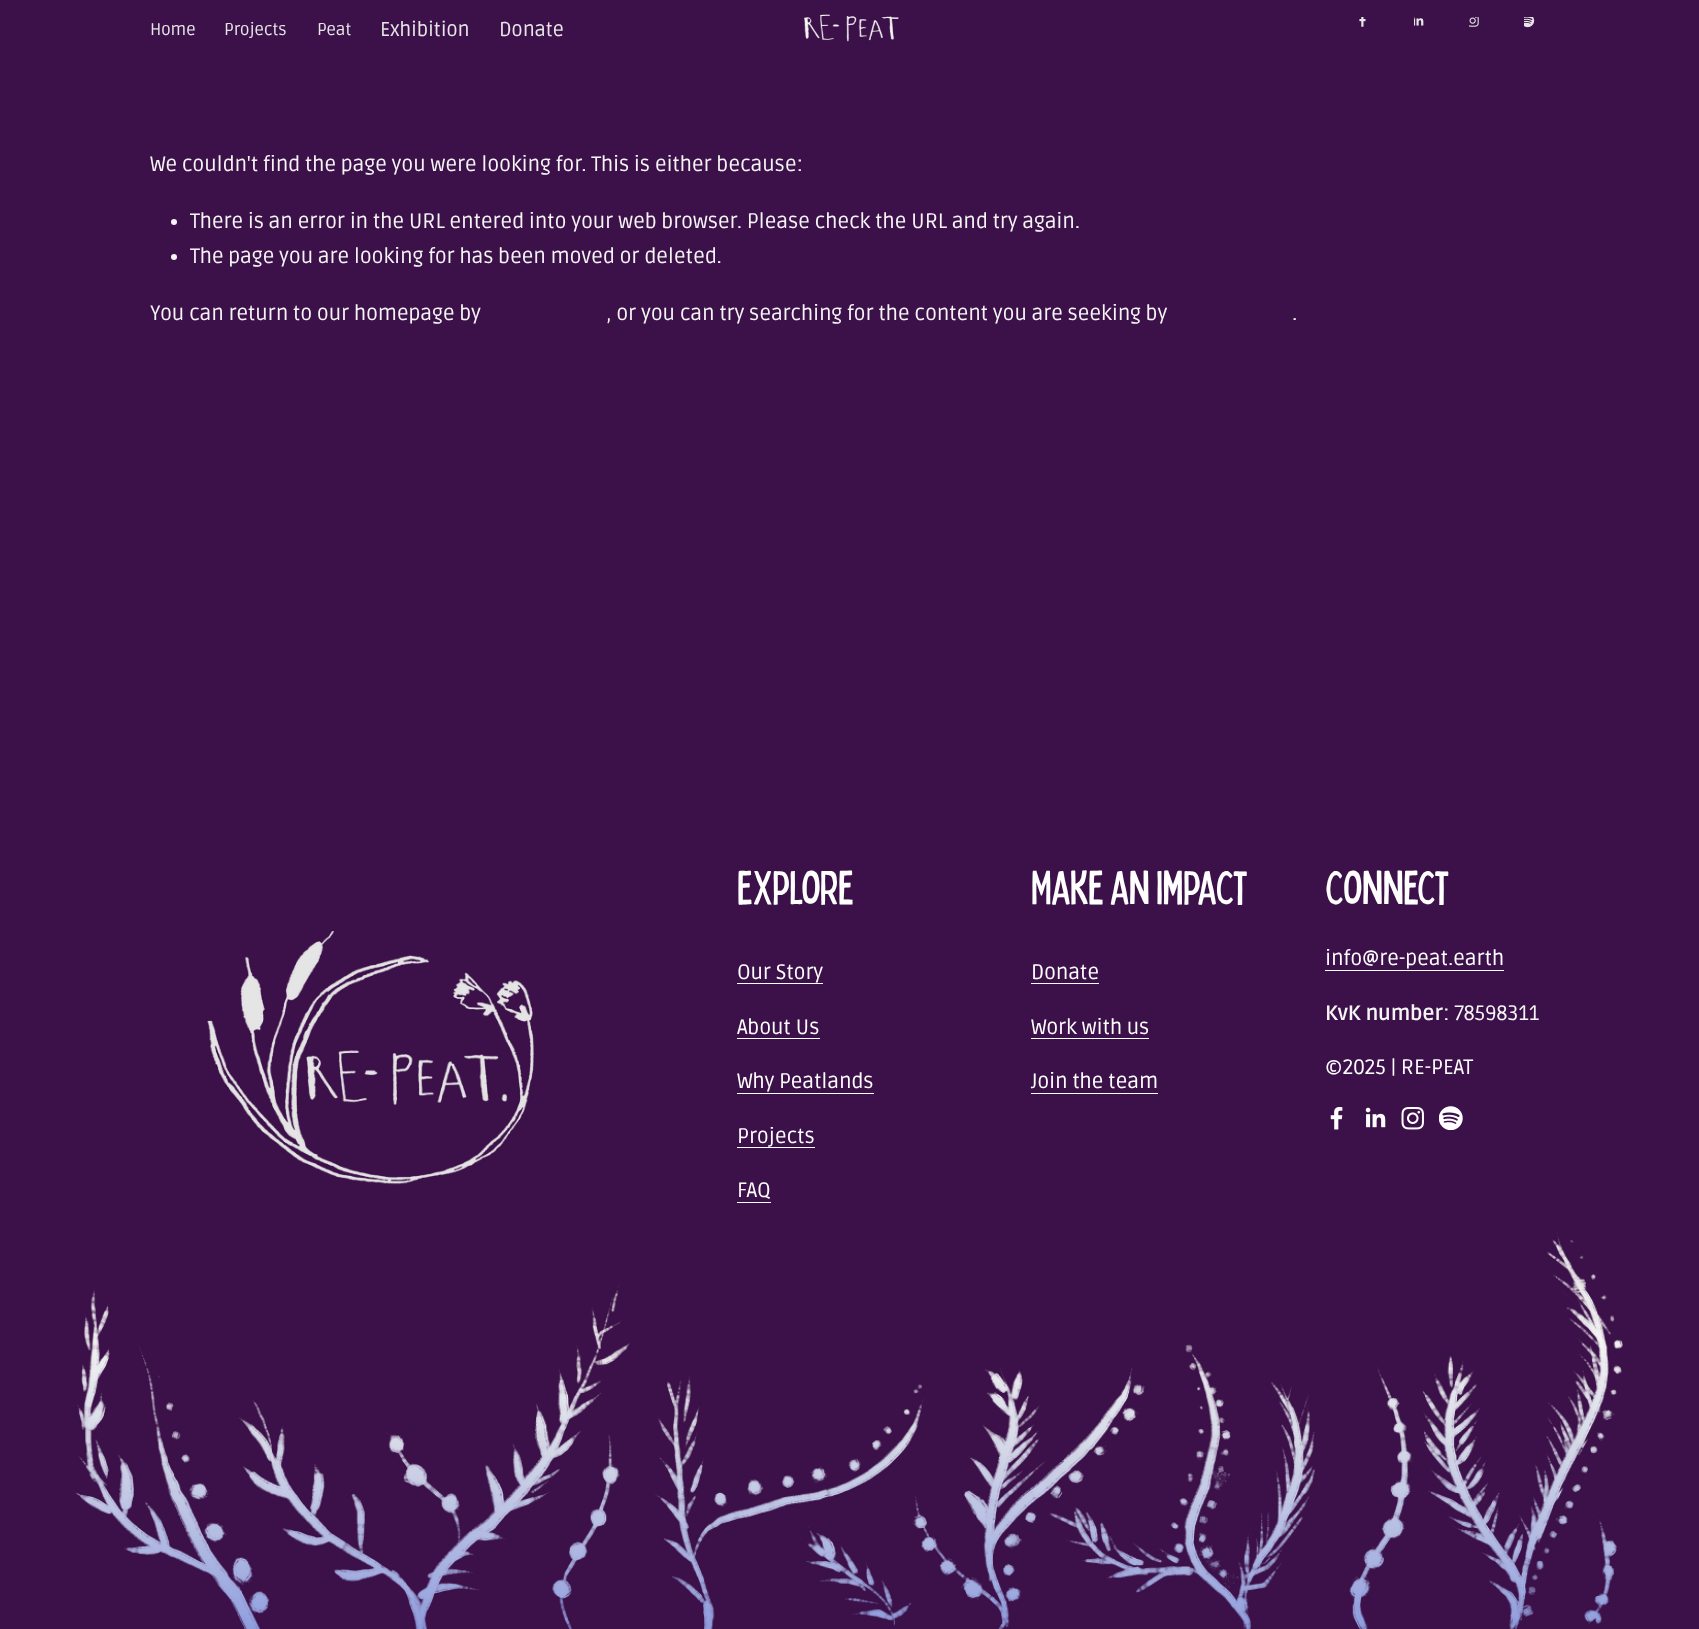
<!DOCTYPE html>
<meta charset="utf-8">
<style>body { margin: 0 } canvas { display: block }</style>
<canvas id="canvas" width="1699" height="1629"></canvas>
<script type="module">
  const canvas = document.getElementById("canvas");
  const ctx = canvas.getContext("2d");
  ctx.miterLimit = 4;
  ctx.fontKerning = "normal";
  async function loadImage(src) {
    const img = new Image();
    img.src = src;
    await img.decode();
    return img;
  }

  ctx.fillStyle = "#3c1049";
  ctx.fillRect(0, 0, 1699, 1629);
  ctx.letterSpacing = "-0.25px";
  ctx.font = "17px Ruda";
  ctx.fillStyle = "#e6e6e6";
  ctx.fillText("Home", 150, 35);
  ctx.fillText("Projects", 224, 35);
  ctx.fillText("Peat", 317, 35);
  ctx.font = "20px Ruda";
  ctx.fillText("Exhibition", 380, 36);
  ctx.fillText("Donate", 499, 36);
  ctx.drawImage(await loadImage("img1.png"), 804, 14, 95, 28);
  ctx.drawImage(await loadImage("img2.png"), 1359, 17, 7, 10);
  ctx.drawImage(await loadImage("img3.png"), 1414, 17, 10, 9);
  ctx.drawImage(await loadImage("img4.png"), 1469, 17, 10, 10);
  ctx.drawImage(await loadImage("img5.png"), 1524, 17, 11, 11);
  ctx.letterSpacing = "-0.2px";
  ctx.font = "20.9px Ruda";
  ctx.fillStyle = "#f5f5f5";
  ctx.fillText("We couldn't find the page you were looking for. This is either because:", 150, 171);
  ctx.beginPath();
  ctx.arc(174, 222, 3, 0, Math.PI * 2);
  ctx.fill();
  ctx.fillText("There is an error in the URL entered into your web browser. Please check the URL and try again.", 190, 228);
  ctx.beginPath();
  ctx.arc(174, 257, 3, 0, Math.PI * 2);
  ctx.fill();
  ctx.fillText("The page you are looking for has been moved or deleted.", 190, 263);
  ctx.fillText("You can return to our homepage by", 150, 320);
  ctx.fillText(", or you can try searching for the content you are seeking by", 606, 320);
  ctx.fillText(".", 1292, 320);
  ctx.letterSpacing = "-0.5px";
  ctx.font = "47.5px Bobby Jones";
  ctx.fillStyle = "#ffffff";
  ctx.fillText("Explore", 737, 904);
  ctx.letterSpacing = "-0.2px";
  ctx.font = "20.9px Ruda";
  ctx.fillText("Our Story", 737, 979);
  ctx.fillRect(737, 983, 86, 1);
  ctx.fillText("About Us", 737, 1034);
  ctx.fillRect(737, 1038, 83, 1);
  ctx.fillText("Why Peatlands", 737, 1088);
  ctx.fillRect(737, 1093, 137, 1);
  ctx.fillText("Projects", 737, 1143);
  ctx.fillRect(737, 1147, 78, 1);
  ctx.fillText("FAQ", 737, 1197);
  ctx.fillRect(737, 1202, 34, 1);
  ctx.letterSpacing = "-0.5px";
  ctx.font = "47.5px Bobby Jones";
  ctx.fillText("Make an impact", 1031, 904);
  ctx.letterSpacing = "-0.2px";
  ctx.font = "20.9px Ruda";
  ctx.fillText("Donate", 1031, 979);
  ctx.fillRect(1031, 983, 68, 1);
  ctx.fillText("Work with us", 1031, 1034);
  ctx.fillRect(1031, 1038, 118, 1);
  ctx.fillText("Join the team", 1031, 1088);
  ctx.fillRect(1031, 1093, 127, 1);
  ctx.letterSpacing = "-0.5px";
  ctx.font = "47.5px Bobby Jones";
  ctx.fillText("Connect", 1325, 904);
  ctx.drawImage(await loadImage("img6.png"), 207, 930, 327, 255);
  ctx.letterSpacing = "-0.2px";
  ctx.font = "20.9px Ruda";
  ctx.fillText("info@re-peat.earth", 1325, 965);
  ctx.fillRect(1325, 970, 179, 1);
  ctx.font = "bold 20.9px Ruda";
  ctx.fillStyle = "#f5f5f5";
  ctx.fillText("KvK number", 1325, 1020);
  ctx.font = "20.9px Ruda";
  ctx.fillText(": 78598311", 1443, 1020);
  ctx.fillStyle = "#ffffff";
  ctx.fillText("©2025 | RE-PEAT", 1325, 1074);
  ctx.drawImage(await loadImage("img7.png"), 1330, 1107, 13, 23);
  ctx.drawImage(await loadImage("img8.png"), 1365, 1107, 21, 21);
  ctx.drawImage(await loadImage("img9.png"), 1401, 1107, 23, 23);
  ctx.drawImage(await loadImage("img10.png"), 1439, 1106, 24, 24);
  ctx.drawImage(await loadImage("img11.png"), 76, 1230, 1547, 399);
</script>
